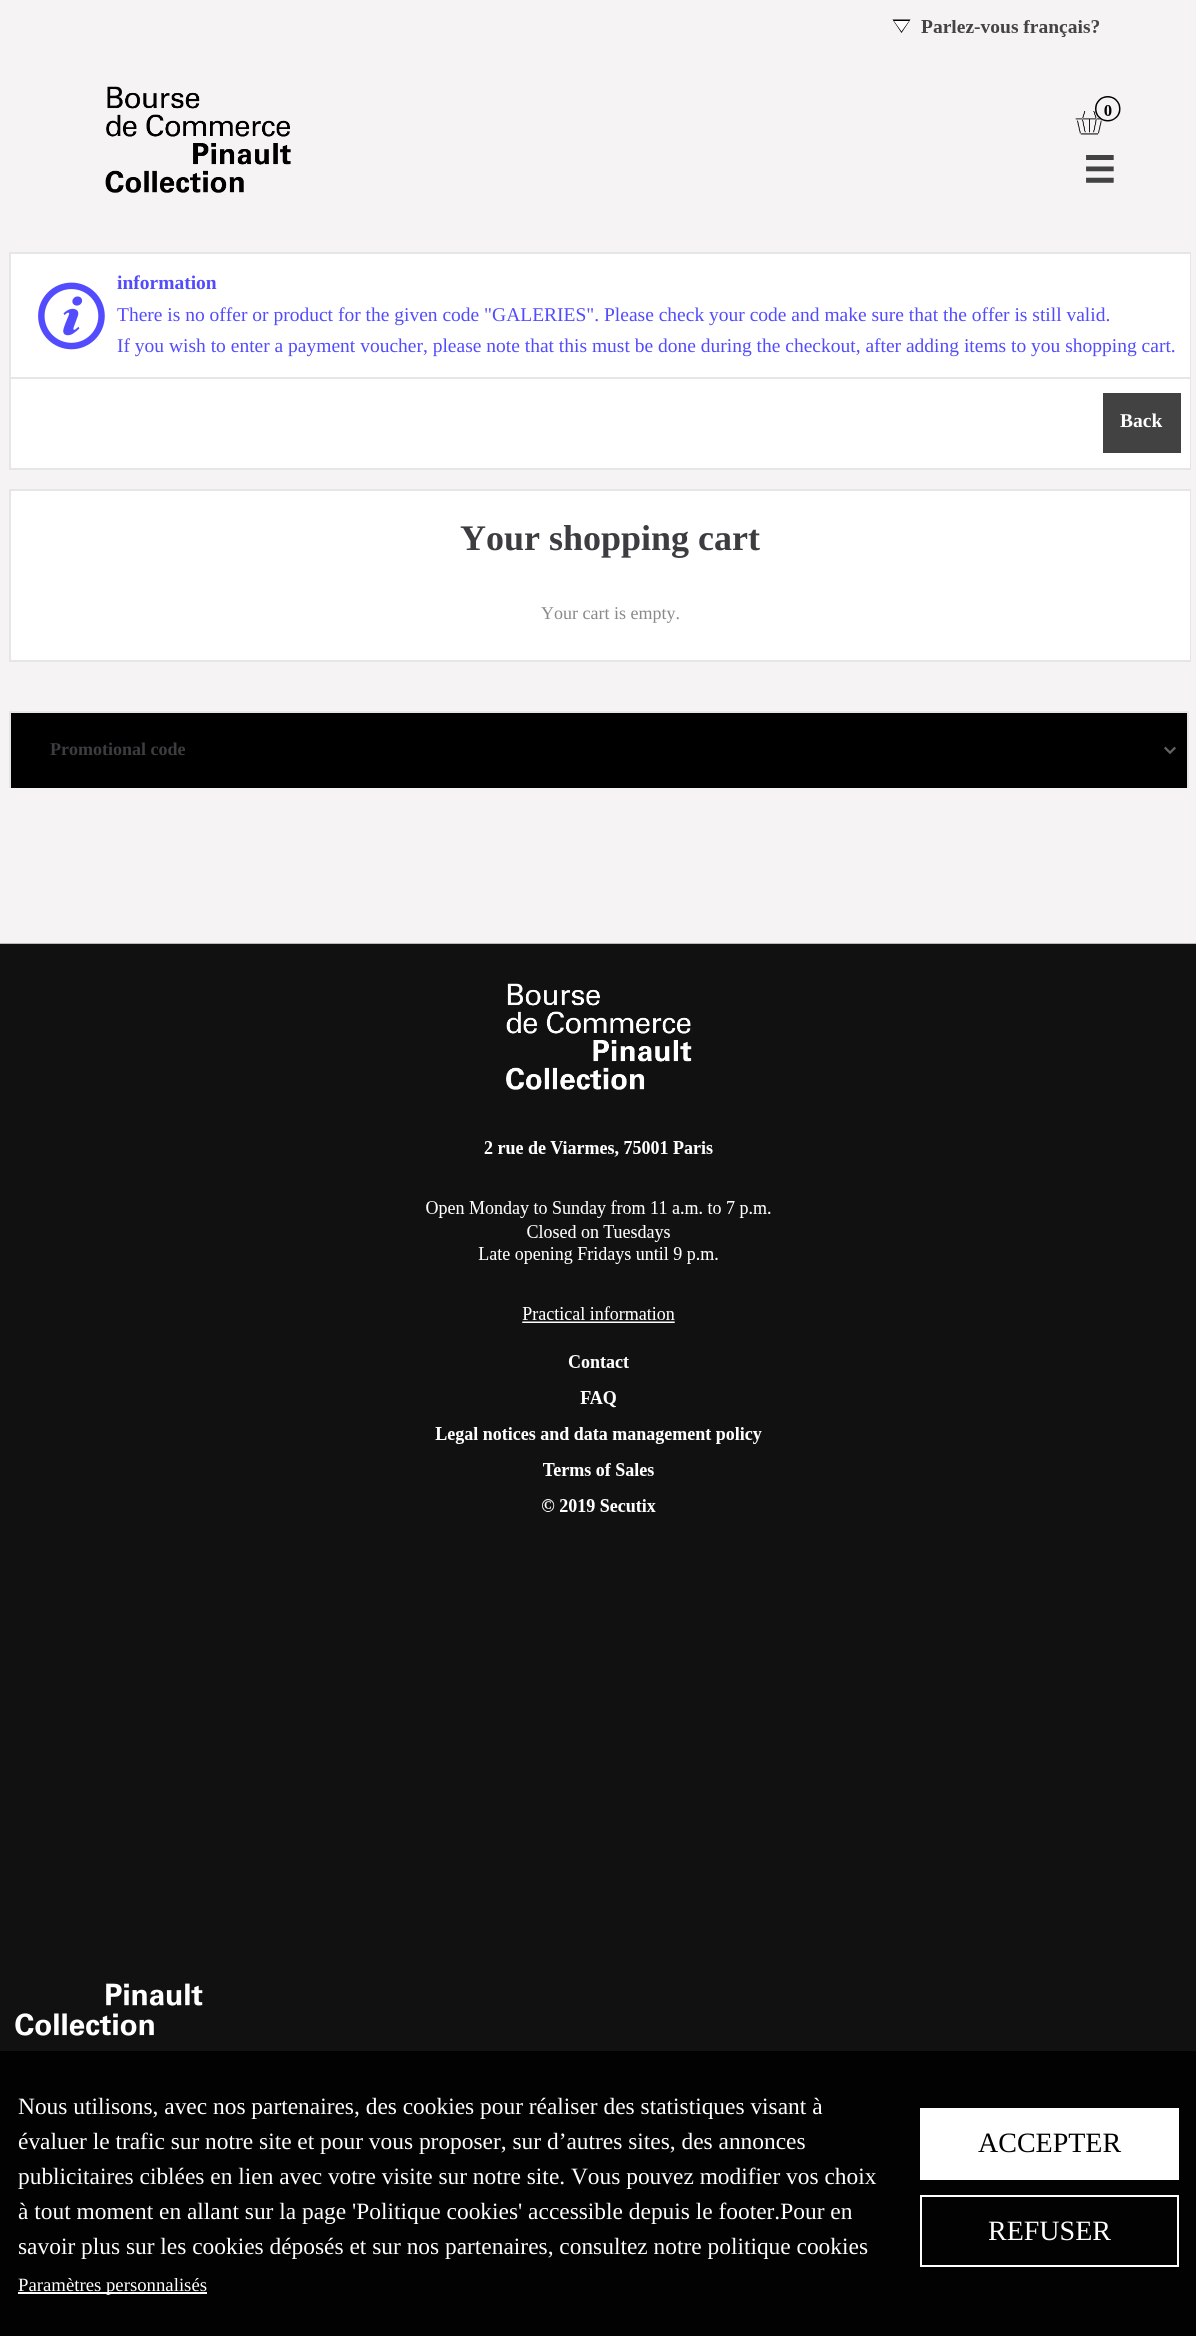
#include <cairo/cairo.h>
#include <math.h>
#include <stddef.h>


static void draw_image(cairo_t *cr, const char *path, double x, double y, double w, double h) {
  cairo_surface_t *image = cairo_image_surface_create_from_png(path);
  cairo_save(cr);
  cairo_set_source_surface(cr, image, x, y);
  cairo_rectangle(cr, x, y, w, h);
  cairo_fill(cr);
  cairo_restore(cr);
  cairo_surface_destroy(image);
}

static void draw(cairo_t *cr) {
  cairo_set_source_rgb(cr, 17 / 255.0, 17 / 255.0, 17 / 255.0);
  cairo_paint(cr);
  cairo_set_source_rgb(cr, 245 / 255.0, 243 / 255.0, 244 / 255.0);
  cairo_rectangle(cr, 0, 0, 1196, 944);
  cairo_fill(cr);
  draw_image(cr, "images/1.png", 105, 19, 1016, 174);
  cairo_rectangle(cr, 10, 253, 1180, 216);
  cairo_set_source_rgb(cr, 230 / 255.0, 230 / 255.0, 230 / 255.0);
  cairo_stroke(cr);
  cairo_set_source_rgb(cr, 1, 1, 1);
  cairo_rectangle(cr, 11, 254, 1179, 214);
  cairo_fill(cr);
  cairo_set_source_rgb(cr, 230 / 255.0, 230 / 255.0, 230 / 255.0);
  cairo_rectangle(cr, 11, 377, 1179, 2);
  cairo_fill(cr);
  draw_image(cr, "images/2.png", 38, 282, 67, 68);
  cairo_set_source_rgb(cr, 66 / 255.0, 66 / 255.0, 66 / 255.0);
  cairo_rectangle(cr, 1103, 393, 78, 60);
  cairo_fill(cr);
  cairo_rectangle(cr, 10, 490, 1180, 171);
  cairo_set_source_rgb(cr, 230 / 255.0, 230 / 255.0, 230 / 255.0);
  cairo_stroke(cr);
  cairo_set_source_rgb(cr, 1, 1, 1);
  cairo_rectangle(cr, 11, 491, 1179, 169);
  cairo_fill(cr);
  cairo_set_source_rgb(cr, 230 / 255.0, 230 / 255.0, 230 / 255.0);
  cairo_rectangle(cr, 9, 711, 1179, 2);
  cairo_fill(cr);
  cairo_rectangle(cr, 1187, 711, 2, 77);
  cairo_fill(cr);
  cairo_rectangle(cr, 9, 711, 2, 77);
  cairo_fill(cr);
  cairo_set_source_rgb(cr, 0, 0, 0);
  cairo_rectangle(cr, 11, 713, 1176, 75);
  cairo_fill(cr);
  draw_image(cr, "images/3.png", 1164, 746, 12, 9);
  draw_image(cr, "images/4.png", 0, 943, 1196, 617);
  cairo_set_source_rgb(cr, 2 / 255.0, 2 / 255.0, 2 / 255.0);
  cairo_rectangle(cr, 0, 2051, 1196, 285);
  cairo_fill(cr);
  draw_image(cr, "images/5.png", 15, 1983, 188, 53);
  cairo_set_source_rgb(cr, 1, 1, 1);
  cairo_rectangle(cr, 18, 2292, 189, 2);
  cairo_fill(cr);
  cairo_rectangle(cr, 920, 2108, 259, 72);
  cairo_fill(cr);
  cairo_rectangle(cr, 921, 2196, 257, 70);
  cairo_stroke(cr);
  cairo_select_font_face(cr, "Liberation Serif", CAIRO_FONT_SLANT_NORMAL, CAIRO_FONT_WEIGHT_BOLD);
  cairo_set_font_size(cr, 19.5);
  cairo_set_source_rgb(cr, 83 / 255.0, 75 / 255.0, 254 / 255.0);
  cairo_move_to(cr, 117, 289);
  cairo_show_text(cr, "information");
  cairo_select_font_face(cr, "Liberation Serif", CAIRO_FONT_SLANT_NORMAL, CAIRO_FONT_WEIGHT_NORMAL);
  cairo_move_to(cr, 117, 321);
  cairo_show_text(cr, "There is no offer or product for the given code \"GALERIES\". Please check your code and make sure that the offer is still valid.");
  cairo_move_to(cr, 117, 352);
  cairo_show_text(cr, "If you wish to enter a payment voucher, please note that this must be done during the checkout, after adding items to you shopping cart.");
  cairo_select_font_face(cr, "Liberation Serif", CAIRO_FONT_SLANT_NORMAL, CAIRO_FONT_WEIGHT_BOLD);
  cairo_set_source_rgb(cr, 1, 1, 1);
  cairo_move_to(cr, 1120, 427);
  cairo_show_text(cr, "Back");
  cairo_set_font_size(cr, 36);
  cairo_set_source_rgb(cr, 59 / 255.0, 61 / 255.0, 64 / 255.0);
  cairo_move_to(cr, 460, 550);
  cairo_show_text(cr, "Your shopping cart");
  cairo_select_font_face(cr, "Liberation Serif", CAIRO_FONT_SLANT_NORMAL, CAIRO_FONT_WEIGHT_NORMAL);
  cairo_set_font_size(cr, 18);
  cairo_set_source_rgb(cr, 136 / 255.0, 137 / 255.0, 138 / 255.0);
  cairo_move_to(cr, 541, 619);
  cairo_show_text(cr, "Your cart is empty.");
  cairo_select_font_face(cr, "Liberation Serif", CAIRO_FONT_SLANT_NORMAL, CAIRO_FONT_WEIGHT_BOLD);
  cairo_set_source_rgb(cr, 59 / 255.0, 61 / 255.0, 64 / 255.0);
  cairo_move_to(cr, 50, 755);
  cairo_show_text(cr, "Promotional code");
  cairo_select_font_face(cr, "Liberation Serif", CAIRO_FONT_SLANT_NORMAL, CAIRO_FONT_WEIGHT_NORMAL);
  cairo_set_font_size(cr, 23.4);
  cairo_set_source_rgb(cr, 1, 1, 1);
  cairo_move_to(cr, 18, 2114);
  cairo_show_text(cr, "Nous utilisons, avec nos partenaires, des cookies pour réaliser des statistiques visant à");
  cairo_move_to(cr, 18, 2149);
  cairo_show_text(cr, "évaluer le trafic sur notre site et pour vous proposer, sur d’autres sites, des annonces");
  cairo_move_to(cr, 18, 2184);
  cairo_show_text(cr, "publicitaires ciblées en lien avec votre visite sur notre site. Vous pouvez modifier vos choix");
  cairo_move_to(cr, 18, 2219);
  cairo_show_text(cr, "à tout moment en allant sur la page 'Politique cookies' accessible depuis le footer.Pour en");
  cairo_move_to(cr, 18, 2254);
  cairo_show_text(cr, "savoir plus sur les cookies déposés et sur nos partenaires, consultez notre politique cookies");
  cairo_set_font_size(cr, 18.75);
  cairo_move_to(cr, 18, 2291);
  cairo_show_text(cr, "Paramètres personnalisés");
  cairo_set_font_size(cr, 28);
  cairo_set_source_rgb(cr, 0, 0, 0);
  cairo_move_to(cr, 978, 2152);
  cairo_show_text(cr, "ACCEPTER");
  cairo_set_source_rgb(cr, 1, 1, 1);
  cairo_move_to(cr, 988, 2240);
  cairo_show_text(cr, "REFUSER");
}

int main(void) {
  cairo_surface_t *surface = cairo_image_surface_create(CAIRO_FORMAT_RGB24, 1196, 2336);
  cairo_t *cr = cairo_create(surface);
  cairo_font_options_t *options = cairo_font_options_create();
  cairo_font_options_set_hint_metrics(options, CAIRO_HINT_METRICS_OFF);
  cairo_font_options_set_hint_style(options, CAIRO_HINT_STYLE_NONE);
  cairo_set_font_options(cr, options);
  cairo_set_miter_limit(cr, 4);
  draw(cr);
  cairo_surface_write_to_png(surface, "out.png");
  cairo_font_options_destroy(options);
  cairo_destroy(cr);
  cairo_surface_destroy(surface);
  return 0;
}
